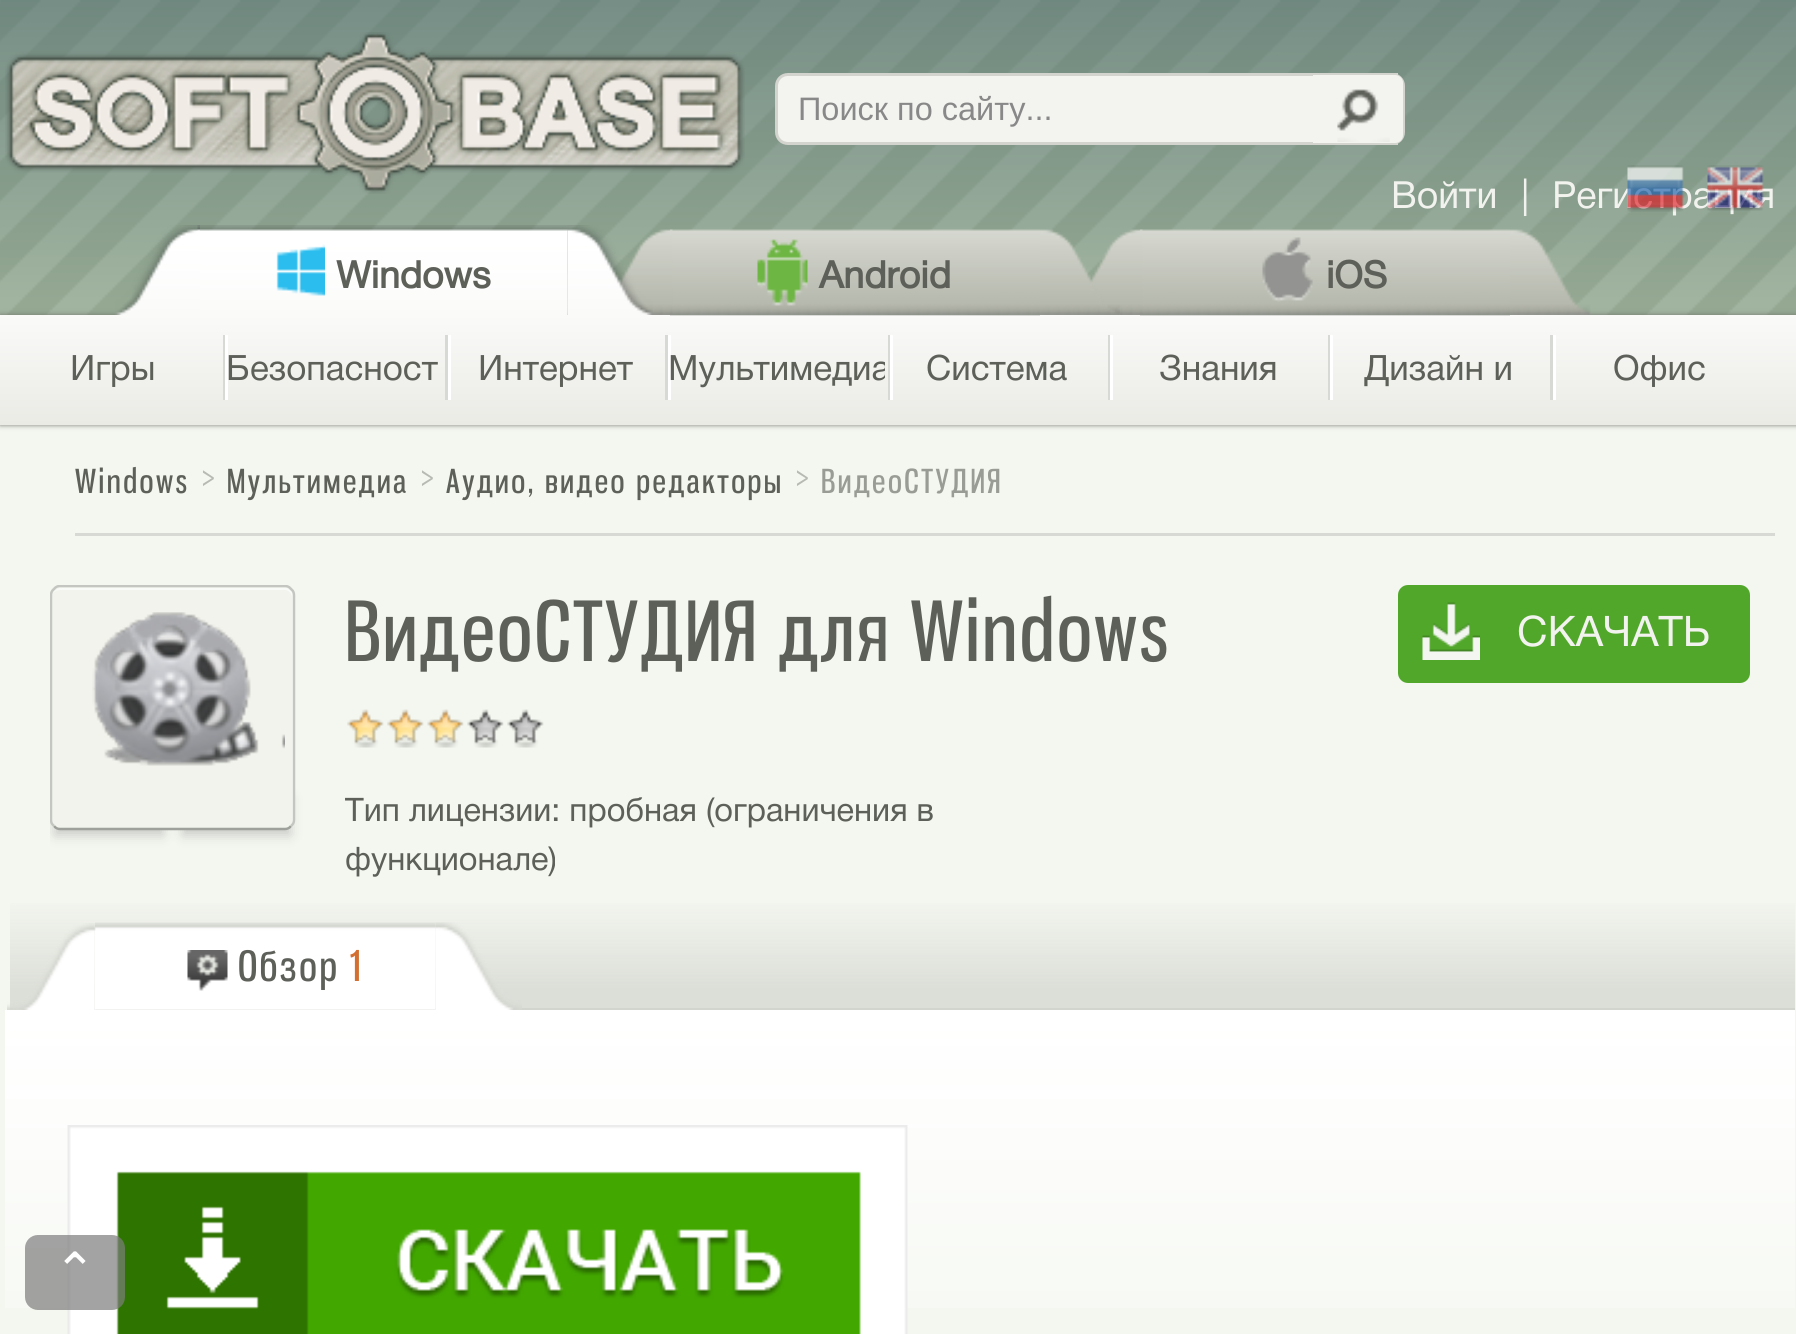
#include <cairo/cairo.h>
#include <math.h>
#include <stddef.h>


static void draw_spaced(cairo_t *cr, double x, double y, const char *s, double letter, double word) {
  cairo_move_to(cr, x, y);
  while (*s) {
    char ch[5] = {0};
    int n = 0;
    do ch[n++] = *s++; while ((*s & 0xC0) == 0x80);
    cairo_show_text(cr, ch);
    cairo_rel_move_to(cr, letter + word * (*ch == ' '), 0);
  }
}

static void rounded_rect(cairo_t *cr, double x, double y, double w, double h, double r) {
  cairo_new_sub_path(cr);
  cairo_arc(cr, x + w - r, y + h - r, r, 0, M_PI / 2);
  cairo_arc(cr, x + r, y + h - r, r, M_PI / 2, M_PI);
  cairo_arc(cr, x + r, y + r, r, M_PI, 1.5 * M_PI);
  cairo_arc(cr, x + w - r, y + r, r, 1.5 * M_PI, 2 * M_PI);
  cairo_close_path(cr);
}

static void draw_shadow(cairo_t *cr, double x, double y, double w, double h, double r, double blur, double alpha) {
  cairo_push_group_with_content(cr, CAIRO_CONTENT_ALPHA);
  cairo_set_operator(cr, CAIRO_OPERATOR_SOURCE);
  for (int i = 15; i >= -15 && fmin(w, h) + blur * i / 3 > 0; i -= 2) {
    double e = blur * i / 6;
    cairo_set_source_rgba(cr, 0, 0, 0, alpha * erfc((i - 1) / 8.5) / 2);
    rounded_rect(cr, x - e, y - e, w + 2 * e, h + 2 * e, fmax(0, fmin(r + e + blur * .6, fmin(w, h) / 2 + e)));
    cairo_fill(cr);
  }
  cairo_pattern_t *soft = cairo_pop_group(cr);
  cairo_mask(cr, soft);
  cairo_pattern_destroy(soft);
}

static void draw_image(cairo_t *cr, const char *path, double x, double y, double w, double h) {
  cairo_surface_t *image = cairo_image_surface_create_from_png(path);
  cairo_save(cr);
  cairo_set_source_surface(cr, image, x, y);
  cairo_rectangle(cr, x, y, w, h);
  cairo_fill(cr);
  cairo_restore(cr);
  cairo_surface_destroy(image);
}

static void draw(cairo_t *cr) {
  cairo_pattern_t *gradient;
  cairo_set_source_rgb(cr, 1, 1, 1);
  cairo_paint(cr);
  draw_image(cr, "images/1.png", 0, 0, 1796, 315);
  draw_image(cr, "images/2.png", 5, 32, 740, 162);
  cairo_set_source_rgb(cr, 243 / 255.0, 243 / 255.0, 239 / 255.0);
  cairo_new_path(cr);
  cairo_move_to(cr, 788, 74.5);
  cairo_line_to(cr, 1396.5, 74.5);
  cairo_line_to(cr, 1396.5, 143.5);
  cairo_line_to(cr, 788, 143.5);
  cairo_curve_to(cr, 781.5, 143.5, 776.5, 138.5, 776.5, 132);
  cairo_line_to(cr, 776.5, 86);
  cairo_curve_to(cr, 776.5, 79.5, 781.5, 74.5, 788, 74.5);
  cairo_close_path(cr);
  cairo_fill_preserve(cr);
  cairo_set_source_rgb(cr, 210 / 255.0, 212 / 255.0, 205 / 255.0);
  cairo_set_line_width(cr, 3);
  cairo_stroke(cr);
  cairo_new_path(cr);
  cairo_move_to(cr, 1314.5, 74.5);
  cairo_line_to(cr, 1392, 74.5);
  cairo_curve_to(cr, 1398.5, 74.5, 1403.5, 79.5, 1403.5, 86);
  cairo_line_to(cr, 1403.5, 132);
  cairo_curve_to(cr, 1403.5, 138.5, 1398.5, 143.5, 1392, 143.5);
  cairo_line_to(cr, 1314.5, 143.5);
  cairo_close_path(cr);
  cairo_stroke(cr);
  cairo_set_source_rgb(cr, 243 / 255.0, 243 / 255.0, 239 / 255.0);
  cairo_new_path(cr);
  cairo_move_to(cr, 1313, 75);
  cairo_line_to(cr, 1395, 75);
  cairo_curve_to(cr, 1399.5, 75, 1403, 78.5, 1403, 83);
  cairo_line_to(cr, 1403, 135);
  cairo_curve_to(cr, 1403, 139.5, 1399.5, 143, 1395, 143);
  cairo_line_to(cr, 1313, 143);
  cairo_close_path(cr);
  cairo_fill(cr);
  draw_image(cr, "images/3.png", 1337, 89, 53, 53);
  cairo_set_source_rgb(cr, 244 / 255.0, 247 / 255.0, 240 / 255.0);
  cairo_rectangle(cr, 0, 425, 1796, 909);
  cairo_fill(cr);
  cairo_set_source_rgb(cr, 117 / 255.0, 120 / 255.0, 113 / 255.0);
  draw_shadow(cr, 0, 315, 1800, 110, 0, 2.5, 1);
  draw_image(cr, "images/6.png", 197, 225, 371, 90);
  draw_image(cr, "images/7.png", 115, 225, 85, 90);
  draw_image(cr, "images/8.png", 276, 244, 49, 52);
  gradient = cairo_pattern_create_linear(900, 315, 900, 425);
  cairo_pattern_add_color_stop_rgba(gradient, 0, 250 / 255.0, 250 / 255.0, 249 / 255.0, 1);
  cairo_pattern_add_color_stop_rgba(gradient, 1, 234 / 255.0, 235 / 255.0, 229 / 255.0, 1);
  cairo_set_source(cr, gradient);
  cairo_pattern_destroy(gradient);
  cairo_rectangle(cr, 0, 315, 1796, 110);
  cairo_fill(cr);
  draw_image(cr, "images/10.png", 670, 229, 370, 87);
  draw_image(cr, "images/11.png", 617, 229, 56, 86);
  draw_image(cr, "images/9.png", 567, 225, 86, 90);
  draw_image(cr, "images/12.png", 757, 239, 51, 67);
  draw_image(cr, "images/14.png", 1140, 229, 370, 87);
  draw_image(cr, "images/15.png", 1089, 229, 54, 86);
  draw_image(cr, "images/13.png", 1040, 229, 80, 86);
  draw_image(cr, "images/16.png", 1262, 237, 51, 65);
  draw_image(cr, "images/17.png", 1510, 229, 81, 86);
  cairo_set_source_rgb(cr, 215 / 255.0, 218 / 255.0, 212 / 255.0);
  cairo_rectangle(cr, 223, 335, 2, 65);
  cairo_fill(cr);
  cairo_set_source_rgb(cr, 1, 1, 1);
  cairo_rectangle(cr, 225, 335, 3, 65);
  cairo_fill(cr);
  cairo_set_source_rgb(cr, 215 / 255.0, 218 / 255.0, 212 / 255.0);
  cairo_rectangle(cr, 445, 335, 3, 65);
  cairo_fill(cr);
  cairo_set_source_rgb(cr, 1, 1, 1);
  cairo_rectangle(cr, 448, 335, 3, 65);
  cairo_fill(cr);
  cairo_set_source_rgb(cr, 215 / 255.0, 218 / 255.0, 212 / 255.0);
  cairo_rectangle(cr, 665, 335, 3, 65);
  cairo_fill(cr);
  cairo_set_source_rgb(cr, 1, 1, 1);
  cairo_rectangle(cr, 668, 335, 3, 65);
  cairo_fill(cr);
  cairo_set_source_rgb(cr, 215 / 255.0, 218 / 255.0, 212 / 255.0);
  cairo_rectangle(cr, 888, 335, 2, 65);
  cairo_fill(cr);
  cairo_set_source_rgb(cr, 1, 1, 1);
  cairo_rectangle(cr, 890, 335, 3, 65);
  cairo_fill(cr);
  cairo_set_source_rgb(cr, 215 / 255.0, 218 / 255.0, 212 / 255.0);
  cairo_rectangle(cr, 1108, 335, 2, 65);
  cairo_fill(cr);
  cairo_set_source_rgb(cr, 1, 1, 1);
  cairo_rectangle(cr, 1110, 335, 3, 65);
  cairo_fill(cr);
  cairo_set_source_rgb(cr, 215 / 255.0, 218 / 255.0, 212 / 255.0);
  cairo_rectangle(cr, 1328, 335, 2, 65);
  cairo_fill(cr);
  cairo_set_source_rgb(cr, 1, 1, 1);
  cairo_rectangle(cr, 1330, 335, 3, 65);
  cairo_fill(cr);
  cairo_set_source_rgb(cr, 215 / 255.0, 218 / 255.0, 212 / 255.0);
  cairo_rectangle(cr, 1550, 335, 3, 65);
  cairo_fill(cr);
  cairo_set_source_rgb(cr, 1, 1, 1);
  cairo_rectangle(cr, 1553, 335, 3, 65);
  cairo_fill(cr);
  cairo_set_source_rgb(cr, 215 / 255.0, 218 / 255.0, 212 / 255.0);
  cairo_rectangle(cr, 75, 533, 1700, 3);
  cairo_fill(cr);
  cairo_save(cr);
  cairo_rectangle(cr, 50, 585, 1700, 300);
  cairo_clip(cr);
  cairo_set_source_rgb(cr, 120 / 255.0, 120 / 255.0, 120 / 255.0);
  draw_shadow(cr, 55, 798, 108, 37, 0, 6, 0.35);
  cairo_restore(cr);
  cairo_set_source_rgb(cr, 120 / 255.0, 120 / 255.0, 120 / 255.0);
  draw_shadow(cr, 183, 798, 107, 37, 0, 6, 0.35);
  cairo_set_source_rgb(cr, 242 / 255.0, 243 / 255.0, 237 / 255.0);
  rounded_rect(cr, 50, 585, 245, 245, 10);
  cairo_fill(cr);
  cairo_set_source_rgb(cr, 249 / 255.0, 251 / 255.0, 248 / 255.0);
  cairo_new_path(cr);
  cairo_move_to(cr, 60, 590);
  cairo_line_to(cr, 285, 590);
  cairo_curve_to(cr, 289, 590, 292, 594, 292, 598);
  cairo_line_to(cr, 292, 824);
  cairo_curve_to(cr, 293, 823, 293, 822, 293, 820);
  cairo_line_to(cr, 293, 596);
  cairo_curve_to(cr, 293, 592, 289, 588, 285, 588);
  cairo_line_to(cr, 61, 588);
  cairo_curve_to(cr, 58, 588, 55, 590, 53, 593);
  cairo_curve_to(cr, 55, 591, 58, 590, 60, 590);
  cairo_close_path(cr);
  cairo_fill(cr);
  cairo_new_path(cr);
  cairo_move_to(cr, 291, 826);
  cairo_curve_to(cr, 289.5, 828, 287.5, 829, 285, 829);
  cairo_line_to(cr, 60, 829);
  cairo_curve_to(cr, 57.5, 829, 55.5, 828, 54, 826);
  cairo_set_source_rgb(cr, 158 / 255.0, 160 / 255.0, 155 / 255.0);
  cairo_set_line_width(cr, 2.5);
  cairo_stroke(cr);
  cairo_save(cr);
  cairo_rectangle(cr, 50, 585, 1700, 300);
  cairo_clip(cr);
  cairo_new_path(cr);
  cairo_move_to(cr, 54, 826);
  cairo_curve_to(cr, 52, 824.5, 51, 822.5, 51, 820);
  cairo_line_to(cr, 51, 595);
  cairo_curve_to(cr, 51, 592.5, 52, 590.5, 54, 589);
  cairo_curve_to(cr, 55.5, 587, 57.5, 586, 60, 586);
  cairo_line_to(cr, 285, 586);
  cairo_curve_to(cr, 287.5, 586, 289.5, 587, 291, 589);
  cairo_curve_to(cr, 293, 590.5, 294, 592.5, 294, 595);
  cairo_line_to(cr, 294, 820);
  cairo_curve_to(cr, 294, 822.5, 293, 824.5, 291, 826);
  cairo_set_source_rgb(cr, 196 / 255.0, 198 / 255.0, 193 / 255.0);
  cairo_stroke(cr);
  cairo_restore(cr);
  draw_image(cr, "images/18.png", 92, 612, 193, 154);
  cairo_set_source_rgb(cr, 81 / 255.0, 167 / 255.0, 42 / 255.0);
  rounded_rect(cr, 1399.5, 586.5, 349, 95, 8.5);
  cairo_fill_preserve(cr);
  cairo_set_line_width(cr, 3);
  cairo_stroke(cr);
  draw_image(cr, "images/19.png", 1422, 602, 58, 58);
  draw_image(cr, "images/20.png", 347, 709, 37, 39);
  draw_image(cr, "images/20.png", 387, 709, 37, 39);
  draw_image(cr, "images/21.png", 427, 709, 37, 39);
  draw_image(cr, "images/22.png", 467, 709, 37, 39);
  draw_image(cr, "images/23.png", 507, 709, 37, 39);
  cairo_set_source_rgb(cr, 210 / 255.0, 212 / 255.0, 206 / 255.0);
  cairo_rectangle(cr, 10, 1008, 1785, 3);
  cairo_fill(cr);
  draw_image(cr, "images/24.png", 5, 1010, 1790, 298);
  gradient = cairo_pattern_create_linear(903, 820, 903, 1008);
  cairo_pattern_add_color_stop_rgba(gradient, 0.4, 220 / 255.0, 223 / 255.0, 216 / 255.0, 0);
  cairo_pattern_add_color_stop_rgba(gradient, 0.9, 220 / 255.0, 223 / 255.0, 216 / 255.0, 1);
  cairo_set_source(cr, gradient);
  cairo_pattern_destroy(gradient);
  cairo_rectangle(cr, 10, 903, 1785, 105);
  cairo_fill(cr);
  draw_image(cr, "images/25.png", 95, 922, 340, 88);
  draw_image(cr, "images/26.png", 7, 923, 89, 87);
  draw_image(cr, "images/27.png", 187, 950, 41, 41);
  draw_image(cr, "images/28.png", 435, 922, 87, 88);
  draw_image(cr, "images/29.png", 67, 1125, 841, 209);
  cairo_set_source_rgba(cr, 125 / 255.0, 125 / 255.0, 125 / 255.0, 0.7);
  rounded_rect(cr, 25, 1235, 100, 75, 13);
  cairo_fill(cr);
  cairo_select_font_face(cr, "Liberation Sans", CAIRO_FONT_SLANT_NORMAL, CAIRO_FONT_WEIGHT_NORMAL);
  cairo_set_font_size(cr, 32.5);
  cairo_set_source_rgb(cr, 136 / 255.0, 136 / 255.0, 136 / 255.0);
  cairo_move_to(cr, 798, 120);
  cairo_show_text(cr, "Поиск по сайту...");
  cairo_select_font_face(cr, "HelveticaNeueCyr", CAIRO_FONT_SLANT_NORMAL, CAIRO_FONT_WEIGHT_NORMAL);
  cairo_set_font_size(cr, 37.5);
  cairo_set_source_rgb(cr, 242 / 255.0, 243 / 255.0, 238 / 255.0);
  cairo_move_to(cr, 1391, 208);
  cairo_show_text(cr, "Войти");
  cairo_move_to(cr, 1521, 208);
  cairo_show_text(cr, "|");
  cairo_move_to(cr, 1552, 208);
  cairo_show_text(cr, "Регистрация");
  draw_image(cr, "images/5.png", 1707, 165, 57, 46);
  draw_image(cr, "images/4.png", 1627, 165, 57, 47);
  cairo_select_font_face(cr, "HelveticaNeueCyr", CAIRO_FONT_SLANT_NORMAL, CAIRO_FONT_WEIGHT_BOLD);
  cairo_set_source_rgb(cr, 93 / 255.0, 95 / 255.0, 89 / 255.0);
  cairo_move_to(cr, 336, 288);
  cairo_show_text(cr, "Windows");
  cairo_move_to(cr, 819, 288);
  cairo_show_text(cr, "Android");
  cairo_move_to(cr, 1326, 288);
  cairo_show_text(cr, "iOS");
  cairo_select_font_face(cr, "HelveticaNeueCyr", CAIRO_FONT_SLANT_NORMAL, CAIRO_FONT_WEIGHT_NORMAL);
  cairo_set_font_size(cr, 35);
  cairo_move_to(cr, 70, 380);
  cairo_show_text(cr, "Игры");
  cairo_move_to(cr, 226, 380);
  cairo_show_text(cr, "Безопасност");
  cairo_move_to(cr, 478, 380);
  cairo_show_text(cr, "Интернет");
  cairo_save(cr);
  cairo_rectangle(cr, 668, 315, 217, 105);
  cairo_clip(cr);
  cairo_move_to(cr, 668, 380);
  cairo_show_text(cr, "Мультимедиа");
  cairo_restore(cr);
  cairo_move_to(cr, 926, 380);
  cairo_show_text(cr, "Система");
  cairo_move_to(cr, 1159, 380);
  cairo_show_text(cr, "Знания");
  cairo_move_to(cr, 1364, 380);
  cairo_show_text(cr, "Дизайн и");
  cairo_move_to(cr, 1613, 380);
  cairo_show_text(cr, "Офис");
  cairo_select_font_face(cr, "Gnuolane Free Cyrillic", CAIRO_FONT_SLANT_NORMAL, CAIRO_FONT_WEIGHT_NORMAL);
  cairo_set_font_size(cr, 32.5);
  draw_spaced(cr, 75, 493, "Windows", 2.5, 0);
  cairo_set_source_rgb(cr, 183 / 255.0, 185 / 255.0, 179 / 255.0);
  draw_spaced(cr, 202, 490, ">", 2.5, 0);
  cairo_set_source_rgb(cr, 93 / 255.0, 95 / 255.0, 89 / 255.0);
  draw_spaced(cr, 227, 493, "Мультимедиа", 2.5, 0);
  cairo_set_source_rgb(cr, 183 / 255.0, 185 / 255.0, 179 / 255.0);
  draw_spaced(cr, 421, 490, ">", 2.5, 0);
  cairo_set_source_rgb(cr, 93 / 255.0, 95 / 255.0, 89 / 255.0);
  draw_spaced(cr, 446, 493, "Аудио, видео редакторы", 2.5, 0);
  cairo_set_source_rgb(cr, 183 / 255.0, 185 / 255.0, 179 / 255.0);
  draw_spaced(cr, 796, 490, ">", 2.5, 0);
  cairo_set_source_rgb(cr, 153 / 255.0, 156 / 255.0, 149 / 255.0);
  draw_spaced(cr, 821, 493, "ВидеоСТУДИЯ", 2.5, 0);
  cairo_set_font_size(cr, 81.25);
  cairo_set_source_rgb(cr, 93 / 255.0, 95 / 255.0, 89 / 255.0);
  draw_spaced(cr, 345, 661, "ВидеоСТУДИЯ для Windows", 2.5, 0);
  cairo_select_font_face(cr, "HelveticaNeueCyr", CAIRO_FONT_SLANT_NORMAL, CAIRO_FONT_WEIGHT_NORMAL);
  cairo_set_font_size(cr, 42.25);
  cairo_set_source_rgb(cr, 242 / 255.0, 243 / 255.0, 238 / 255.0);
  cairo_move_to(cr, 1517, 646);
  cairo_show_text(cr, "СКАЧАТЬ");
  cairo_set_font_size(cr, 32.5);
  cairo_set_source_rgb(cr, 93 / 255.0, 95 / 255.0, 89 / 255.0);
  cairo_move_to(cr, 345, 821);
  cairo_show_text(cr, "Тип лицензии: пробная (ограничения в");
  cairo_move_to(cr, 345, 870);
  cairo_show_text(cr, "функционале)");
  cairo_select_font_face(cr, "Gnuolane Free Cyrillic", CAIRO_FONT_SLANT_NORMAL, CAIRO_FONT_WEIGHT_NORMAL);
  cairo_set_font_size(cr, 41);
  draw_spaced(cr, 238, 981, "Обзор", 2.5, 0);
  cairo_set_source_rgb(cr, 211 / 255.0, 111 / 255.0, 49 / 255.0);
  draw_spaced(cr, 350, 981, "1", 2.5, 0);
  cairo_select_font_face(cr, "DejaVu Sans", CAIRO_FONT_SLANT_NORMAL, CAIRO_FONT_WEIGHT_NORMAL);
  cairo_set_font_size(cr, 50);
  cairo_set_source_rgb(cr, 1, 1, 1);
  cairo_move_to(cr, 54, 1288);
  cairo_show_text(cr, "⌃");
}

int main(void) {
  cairo_surface_t *surface = cairo_image_surface_create(CAIRO_FORMAT_RGB24, 1796, 1334);
  cairo_t *cr = cairo_create(surface);
  cairo_font_options_t *options = cairo_font_options_create();
  cairo_font_options_set_hint_metrics(options, CAIRO_HINT_METRICS_OFF);
  cairo_font_options_set_hint_style(options, CAIRO_HINT_STYLE_NONE);
  cairo_set_font_options(cr, options);
  cairo_set_miter_limit(cr, 4);
  draw(cr);
  cairo_surface_write_to_png(surface, "out.png");
  cairo_font_options_destroy(options);
  cairo_destroy(cr);
  cairo_surface_destroy(surface);
  return 0;
}
